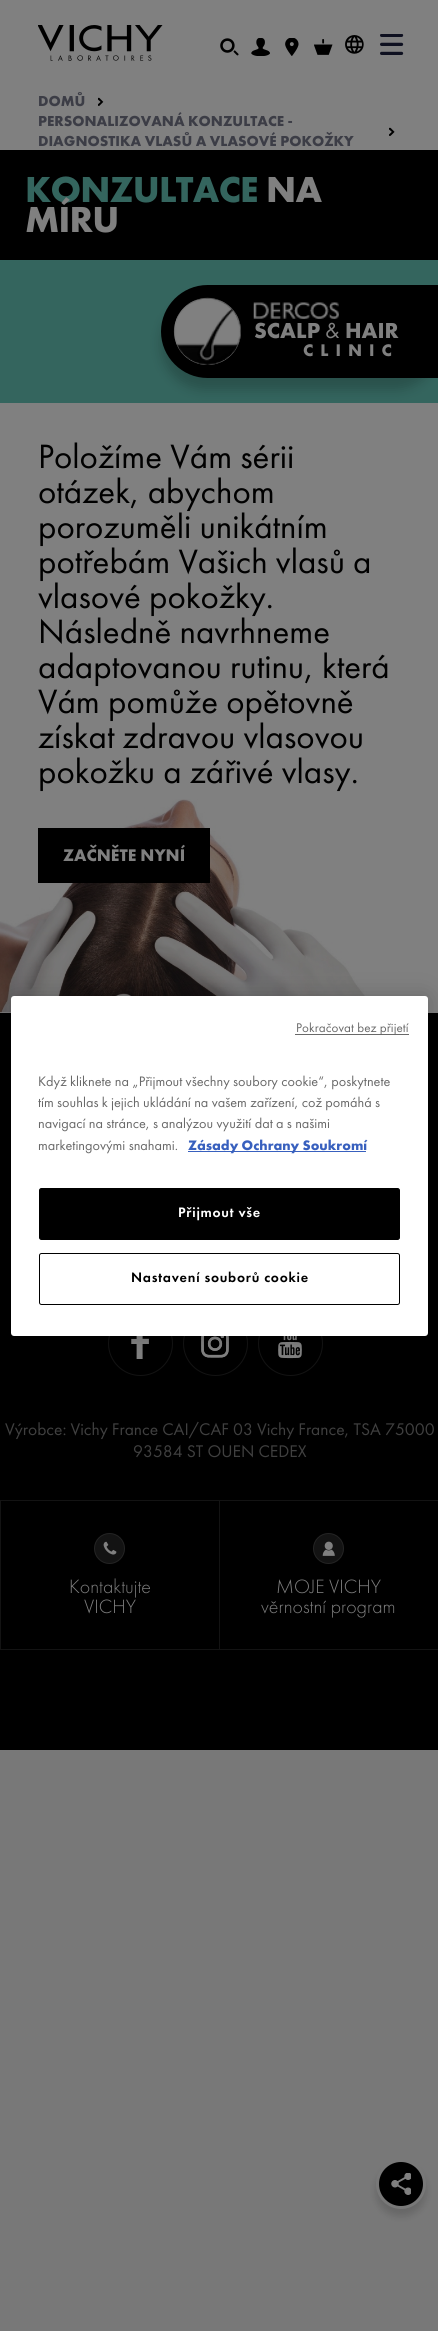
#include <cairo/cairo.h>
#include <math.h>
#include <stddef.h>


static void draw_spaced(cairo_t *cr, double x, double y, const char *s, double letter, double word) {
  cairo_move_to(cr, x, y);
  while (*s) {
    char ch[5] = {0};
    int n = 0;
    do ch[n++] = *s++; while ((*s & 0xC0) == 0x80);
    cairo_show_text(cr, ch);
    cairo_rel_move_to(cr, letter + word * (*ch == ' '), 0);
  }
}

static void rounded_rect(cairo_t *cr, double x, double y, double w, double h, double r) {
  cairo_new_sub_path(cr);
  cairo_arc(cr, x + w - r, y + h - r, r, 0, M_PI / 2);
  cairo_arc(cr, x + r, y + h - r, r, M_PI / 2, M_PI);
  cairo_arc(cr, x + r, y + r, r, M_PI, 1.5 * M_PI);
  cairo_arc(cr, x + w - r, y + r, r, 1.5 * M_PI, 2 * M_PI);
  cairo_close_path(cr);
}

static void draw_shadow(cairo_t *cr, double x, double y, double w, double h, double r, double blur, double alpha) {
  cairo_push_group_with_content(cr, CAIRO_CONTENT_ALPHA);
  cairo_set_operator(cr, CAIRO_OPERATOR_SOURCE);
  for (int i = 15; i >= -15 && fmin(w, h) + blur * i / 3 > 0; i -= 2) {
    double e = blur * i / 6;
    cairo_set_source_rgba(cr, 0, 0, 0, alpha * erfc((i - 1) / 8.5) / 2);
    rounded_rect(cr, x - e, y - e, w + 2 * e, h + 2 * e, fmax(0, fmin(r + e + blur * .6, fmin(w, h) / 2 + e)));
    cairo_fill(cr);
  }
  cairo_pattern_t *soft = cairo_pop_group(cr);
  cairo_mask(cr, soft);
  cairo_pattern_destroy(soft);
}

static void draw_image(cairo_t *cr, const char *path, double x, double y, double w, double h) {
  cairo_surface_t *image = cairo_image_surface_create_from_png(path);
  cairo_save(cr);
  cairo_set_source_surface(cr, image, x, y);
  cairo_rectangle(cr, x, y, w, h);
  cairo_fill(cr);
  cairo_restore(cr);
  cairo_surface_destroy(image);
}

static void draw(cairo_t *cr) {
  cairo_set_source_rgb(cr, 120 / 255.0, 120 / 255.0, 120 / 255.0);
  cairo_paint(cr);
  cairo_set_source_rgb(cr, 128 / 255.0, 128 / 255.0, 128 / 255.0);
  cairo_rectangle(cr, 0, 0, 438, 150);
  cairo_fill(cr);
  draw_image(cr, "images/1.png", 38, 25, 125, 36);
  draw_image(cr, "images/2.png", 220, 38, 19, 18);
  draw_image(cr, "images/3.png", 251, 38, 19, 18);
  draw_image(cr, "images/4.png", 285, 38, 14, 18);
  draw_image(cr, "images/5.png", 314, 39, 19, 16);
  draw_image(cr, "images/6.png", 345, 35, 19, 19);
  draw_image(cr, "images/7.png", 380, 34, 24, 21);
  draw_image(cr, "images/8.png", 98, 97, 6, 9);
  draw_image(cr, "images/9.png", 389, 127, 6, 9);
  cairo_rectangle(cr, 0, 403, 438, 610);
  cairo_fill(cr);
  draw_image(cr, "images/10.png", 0, 799, 375, 214);
  cairo_set_source_rgb(cr, 0, 0, 0);
  cairo_rectangle(cr, 0, 150, 438, 110);
  cairo_fill(cr);
  cairo_set_source_rgb(cr, 52 / 255.0, 101 / 255.0, 94 / 255.0);
  cairo_rectangle(cr, 0, 260, 438, 143);
  cairo_fill(cr);
  cairo_set_source_rgb(cr, 0, 0, 0);
  draw_shadow(cr, 161, 298, 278, 92, 46, 6, 0.2);
  cairo_set_source_rgb(cr, 0, 0, 0);
  cairo_new_path(cr);
  cairo_move_to(cr, 207.5, 285);
  cairo_line_to(cr, 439, 285);
  cairo_line_to(cr, 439, 378);
  cairo_line_to(cr, 207.5, 378);
  cairo_curve_to(cr, 182, 378, 161, 357, 161, 331.5);
  cairo_curve_to(cr, 161, 306, 182, 285, 207.5, 285);
  cairo_close_path(cr);
  cairo_fill(cr);
  cairo_set_source_rgb(cr, 128 / 255.0, 128 / 255.0, 128 / 255.0);
  cairo_arc(cr, 207.5, 331.5, 33.5, 0, 2 * M_PI);
  cairo_fill(cr);
  draw_image(cr, "images/11.png", 173, 297, 69, 68);
  draw_image(cr, "images/12.png", 253, 302, 86, 17);
  cairo_set_source_rgb(cr, 0, 0, 0);
  cairo_rectangle(cr, 38, 828, 172, 55);
  cairo_fill(cr);
  cairo_rectangle(cr, 0, 1013, 438, 737);
  cairo_fill(cr);
  cairo_arc(cr, 140.5, 1343.5, 32, 0, 2 * M_PI);
  cairo_set_source_rgb(cr, 19 / 255.0, 19 / 255.0, 19 / 255.0);
  cairo_set_line_width(cr, 1);
  cairo_stroke(cr);
  draw_image(cr, "images/13.png", 131, 1336, 18, 23);
  cairo_arc(cr, 215.5, 1343.5, 32, 0, 2 * M_PI);
  cairo_stroke(cr);
  draw_image(cr, "images/14.png", 201, 1336, 28, 22);
  draw_image(cr, "images/15.png", 201, 1336, 28, 22);
  cairo_arc(cr, 290.5, 1343.5, 32, 0, 2 * M_PI);
  cairo_stroke(cr);
  draw_image(cr, "images/16.png", 278, 1336, 24, 23);
  cairo_set_source_rgb(cr, 0, 0, 0);
  draw_shadow(cr, 11, 996, 417, 340, 3, 11, 0.2);
  cairo_set_source_rgb(cr, 1, 1, 1);
  rounded_rect(cr, 11, 996, 417, 340, 3);
  cairo_fill(cr);
  cairo_set_source_rgb(cr, 105 / 255.0, 105 / 255.0, 105 / 255.0);
  cairo_rectangle(cr, 295, 1034, 114, 1);
  cairo_fill(cr);
  cairo_set_source_rgb(cr, 56 / 255.0, 96 / 255.0, 190 / 255.0);
  cairo_rectangle(cr, 188, 1151, 178, 1);
  cairo_fill(cr);
  cairo_set_source_rgb(cr, 0, 0, 0);
  rounded_rect(cr, 39.5, 1188.5, 360, 51, 2);
  cairo_fill_preserve(cr);
  cairo_stroke(cr);
  rounded_rect(cr, 39.5, 1253.5, 360, 51, 2);
  cairo_stroke(cr);
  cairo_rectangle(cr, 0.5, 1500.5, 219, 149);
  cairo_set_source_rgb(cr, 19 / 255.0, 19 / 255.0, 19 / 255.0);
  cairo_stroke(cr);
  cairo_arc(cr, 109.5, 1548.5, 15.5, 0, 2 * M_PI);
  cairo_fill(cr);
  cairo_arc(cr, 109.5, 1548.5, 15, 0, 2 * M_PI);
  cairo_set_source_rgba(cr, 128 / 255.0, 128 / 255.0, 128 / 255.0, 0.15);
  cairo_stroke(cr);
  draw_image(cr, "images/17.png", 103, 1541, 14, 14);
  cairo_set_source_rgb(cr, 19 / 255.0, 19 / 255.0, 19 / 255.0);
  cairo_new_path(cr);
  cairo_move_to(cr, 220, 1500);
  cairo_line_to(cr, 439, 1500);
  cairo_line_to(cr, 438, 1501);
  cairo_line_to(cr, 220, 1501);
  cairo_close_path(cr);
  cairo_fill(cr);
  cairo_new_path(cr);
  cairo_move_to(cr, 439, 1650);
  cairo_line_to(cr, 220, 1650);
  cairo_line_to(cr, 220, 1649);
  cairo_line_to(cr, 438, 1649);
  cairo_close_path(cr);
  cairo_fill(cr);
  cairo_arc(cr, 328.5, 1548.5, 15.5, 0, 2 * M_PI);
  cairo_fill(cr);
  cairo_arc(cr, 328.5, 1548.5, 15, 0, 2 * M_PI);
  cairo_set_source_rgba(cr, 128 / 255.0, 128 / 255.0, 128 / 255.0, 0.15);
  cairo_stroke(cr);
  draw_image(cr, "images/18.png", 322, 1541, 13, 15);
  cairo_set_source_rgb(cr, 0, 0, 0);
  draw_shadow(cr, 376, 2166, 50, 50, 25, 4, 0.15);
  cairo_set_source_rgb(cr, 0, 0, 0);
  cairo_arc(cr, 401, 2184, 23.5, 0, 2 * M_PI);
  cairo_fill_preserve(cr);
  cairo_set_source_rgb(cr, 120 / 255.0, 120 / 255.0, 120 / 255.0);
  cairo_set_line_width(cr, 3);
  cairo_stroke(cr);
  draw_image(cr, "images/19.png", 391, 2173, 20, 22);
  cairo_select_font_face(cr, "Futura PT", CAIRO_FONT_SLANT_NORMAL, CAIRO_FONT_WEIGHT_BOLD);
  cairo_set_font_size(cr, 15);
  cairo_set_source_rgb(cr, 60 / 255.0, 61 / 255.0, 70 / 255.0);
  cairo_move_to(cr, 38, 106);
  cairo_show_text(cr, "DOMŮ");
  cairo_move_to(cr, 38, 126);
  cairo_show_text(cr, "PERSONALIZOVANÁ KONZULTACE -");
  cairo_move_to(cr, 38, 146);
  cairo_show_text(cr, "DIAGNOSTIKA VLASŮ A VLASOVÉ POKOŽKY");
  cairo_set_font_size(cr, 37.5);
  cairo_set_source_rgb(cr, 52 / 255.0, 101 / 255.0, 94 / 255.0);
  draw_spaced(cr, 25, 202, "KONZULTACE", -0.75, 0);
  cairo_set_source_rgb(cr, 128 / 255.0, 128 / 255.0, 128 / 255.0);
  draw_spaced(cr, 266, 202, "NA", -0.75, 0);
  draw_spaced(cr, 25, 232, "MÍRU", -0.75, 0);
  cairo_set_font_size(cr, 22.5);
  cairo_move_to(cr, 254, 338);
  cairo_show_text(cr, "SCALP");
  cairo_select_font_face(cr, "Futura PT", CAIRO_FONT_SLANT_NORMAL, CAIRO_FONT_WEIGHT_NORMAL);
  cairo_move_to(cr, 325, 338);
  cairo_show_text(cr, "&");
  cairo_select_font_face(cr, "Futura PT", CAIRO_FONT_SLANT_NORMAL, CAIRO_FONT_WEIGHT_BOLD);
  cairo_move_to(cr, 345, 338);
  cairo_show_text(cr, "HAIR");
  cairo_set_font_size(cr, 17.5);
  draw_spaced(cr, 303, 356, "CLINIC", 7, 0);
  cairo_select_font_face(cr, "Futura PT", CAIRO_FONT_SLANT_NORMAL, CAIRO_FONT_WEIGHT_NORMAL);
  cairo_set_font_size(cr, 35);
  cairo_set_source_rgb(cr, 0, 0, 0);
  cairo_move_to(cr, 38, 468);
  cairo_show_text(cr, "Položíme Vám sérii");
  cairo_move_to(cr, 38, 503);
  cairo_show_text(cr, "otázek, abychom");
  cairo_move_to(cr, 38, 538);
  cairo_show_text(cr, "porozuměli unikátním");
  cairo_move_to(cr, 38, 573);
  cairo_show_text(cr, "potřebám Vašich vlasů a");
  cairo_move_to(cr, 38, 608);
  cairo_show_text(cr, "vlasové pokožky.");
  cairo_move_to(cr, 38, 643);
  cairo_show_text(cr, "Následně navrhneme");
  cairo_move_to(cr, 38, 678);
  cairo_show_text(cr, "adaptovanou rutinu, která");
  cairo_move_to(cr, 38, 713);
  cairo_show_text(cr, "Vám pomůže opětovně");
  cairo_move_to(cr, 38, 748);
  cairo_show_text(cr, "získat zdravou vlasovou");
  cairo_move_to(cr, 38, 783);
  cairo_show_text(cr, "pokožku a zářivé vlasy.");
  cairo_select_font_face(cr, "Futura PT", CAIRO_FONT_SLANT_NORMAL, CAIRO_FONT_WEIGHT_BOLD);
  cairo_set_font_size(cr, 17.5);
  cairo_set_source_rgb(cr, 128 / 255.0, 128 / 255.0, 128 / 255.0);
  cairo_move_to(cr, 63, 861);
  cairo_show_text(cr, "ZAČNĚTE NYNÍ");
  cairo_select_font_face(cr, "Futura PT", CAIRO_FONT_SLANT_NORMAL, CAIRO_FONT_WEIGHT_NORMAL);
  cairo_set_font_size(cr, 13.1);
  cairo_set_source_rgb(cr, 105 / 255.0, 105 / 255.0, 105 / 255.0);
  draw_spaced(cr, 296, 1032, "Pokračovat bez přijetí", 0.1, 0);
  cairo_set_font_size(cr, 14.25);
  cairo_move_to(cr, 38, 1086);
  cairo_show_text(cr, "Když kliknete na „Přijmout všechny soubory cookie“, poskytnete");
  cairo_move_to(cr, 38, 1107);
  cairo_show_text(cr, "tím souhlas k jejich ukládání na vašem zařízení, což pomáhá s");
  cairo_move_to(cr, 38, 1128);
  cairo_show_text(cr, "navigací na stránce, s analýzou využití dat a s našimi");
  cairo_move_to(cr, 38, 1150);
  cairo_show_text(cr, "marketingovými snahami.");
  cairo_select_font_face(cr, "Futura PT", CAIRO_FONT_SLANT_NORMAL, CAIRO_FONT_WEIGHT_BOLD);
  cairo_set_source_rgb(cr, 56 / 255.0, 96 / 255.0, 190 / 255.0);
  cairo_move_to(cr, 188, 1150);
  cairo_show_text(cr, "Zásady Ochrany Soukromí");
  cairo_select_font_face(cr, "Futura PT Medium", CAIRO_FONT_SLANT_NORMAL, CAIRO_FONT_WEIGHT_NORMAL);
  cairo_set_source_rgb(cr, 1, 1, 1);
  draw_spaced(cr, 178, 1217, "Přijmout vše", 0.75, 0);
  cairo_set_source_rgb(cr, 0, 0, 0);
  draw_spaced(cr, 131, 1282, "Nastavení souborů cookie", 0.75, 0);
  cairo_select_font_face(cr, "Futura PT", CAIRO_FONT_SLANT_NORMAL, CAIRO_FONT_WEIGHT_NORMAL);
  cairo_set_font_size(cr, 17.5);
  cairo_set_source_rgb(cr, 64 / 255.0, 64 / 255.0, 64 / 255.0);
  cairo_move_to(cr, 5, 1435);
  cairo_show_text(cr, "Výrobce: Vichy France CAI/CAF 03 Vichy France, TSA 75000");
  cairo_move_to(cr, 133, 1457);
  cairo_show_text(cr, "93584 ST OUEN CEDEX");
  cairo_select_font_face(cr, "Futura PT Light", CAIRO_FONT_SLANT_NORMAL, CAIRO_FONT_WEIGHT_NORMAL);
  cairo_set_font_size(cr, 20);
  cairo_set_source_rgb(cr, 128 / 255.0, 128 / 255.0, 128 / 255.0);
  cairo_move_to(cr, 69, 1593);
  cairo_show_text(cr, "Kontaktujte");
  cairo_move_to(cr, 84, 1613);
  cairo_show_text(cr, "VICHY");
  cairo_move_to(cr, 276, 1593);
  cairo_show_text(cr, "MOJE VICHY");
  cairo_move_to(cr, 261, 1613);
  cairo_show_text(cr, "věrnostní program");
}

int main(void) {
  cairo_surface_t *surface = cairo_image_surface_create(CAIRO_FORMAT_RGB24, 438, 2331);
  cairo_t *cr = cairo_create(surface);
  cairo_font_options_t *options = cairo_font_options_create();
  cairo_font_options_set_hint_metrics(options, CAIRO_HINT_METRICS_OFF);
  cairo_font_options_set_hint_style(options, CAIRO_HINT_STYLE_NONE);
  cairo_set_font_options(cr, options);
  cairo_set_miter_limit(cr, 4);
  draw(cr);
  cairo_surface_write_to_png(surface, "out.png");
  cairo_font_options_destroy(options);
  cairo_destroy(cr);
  cairo_surface_destroy(surface);
  return 0;
}
